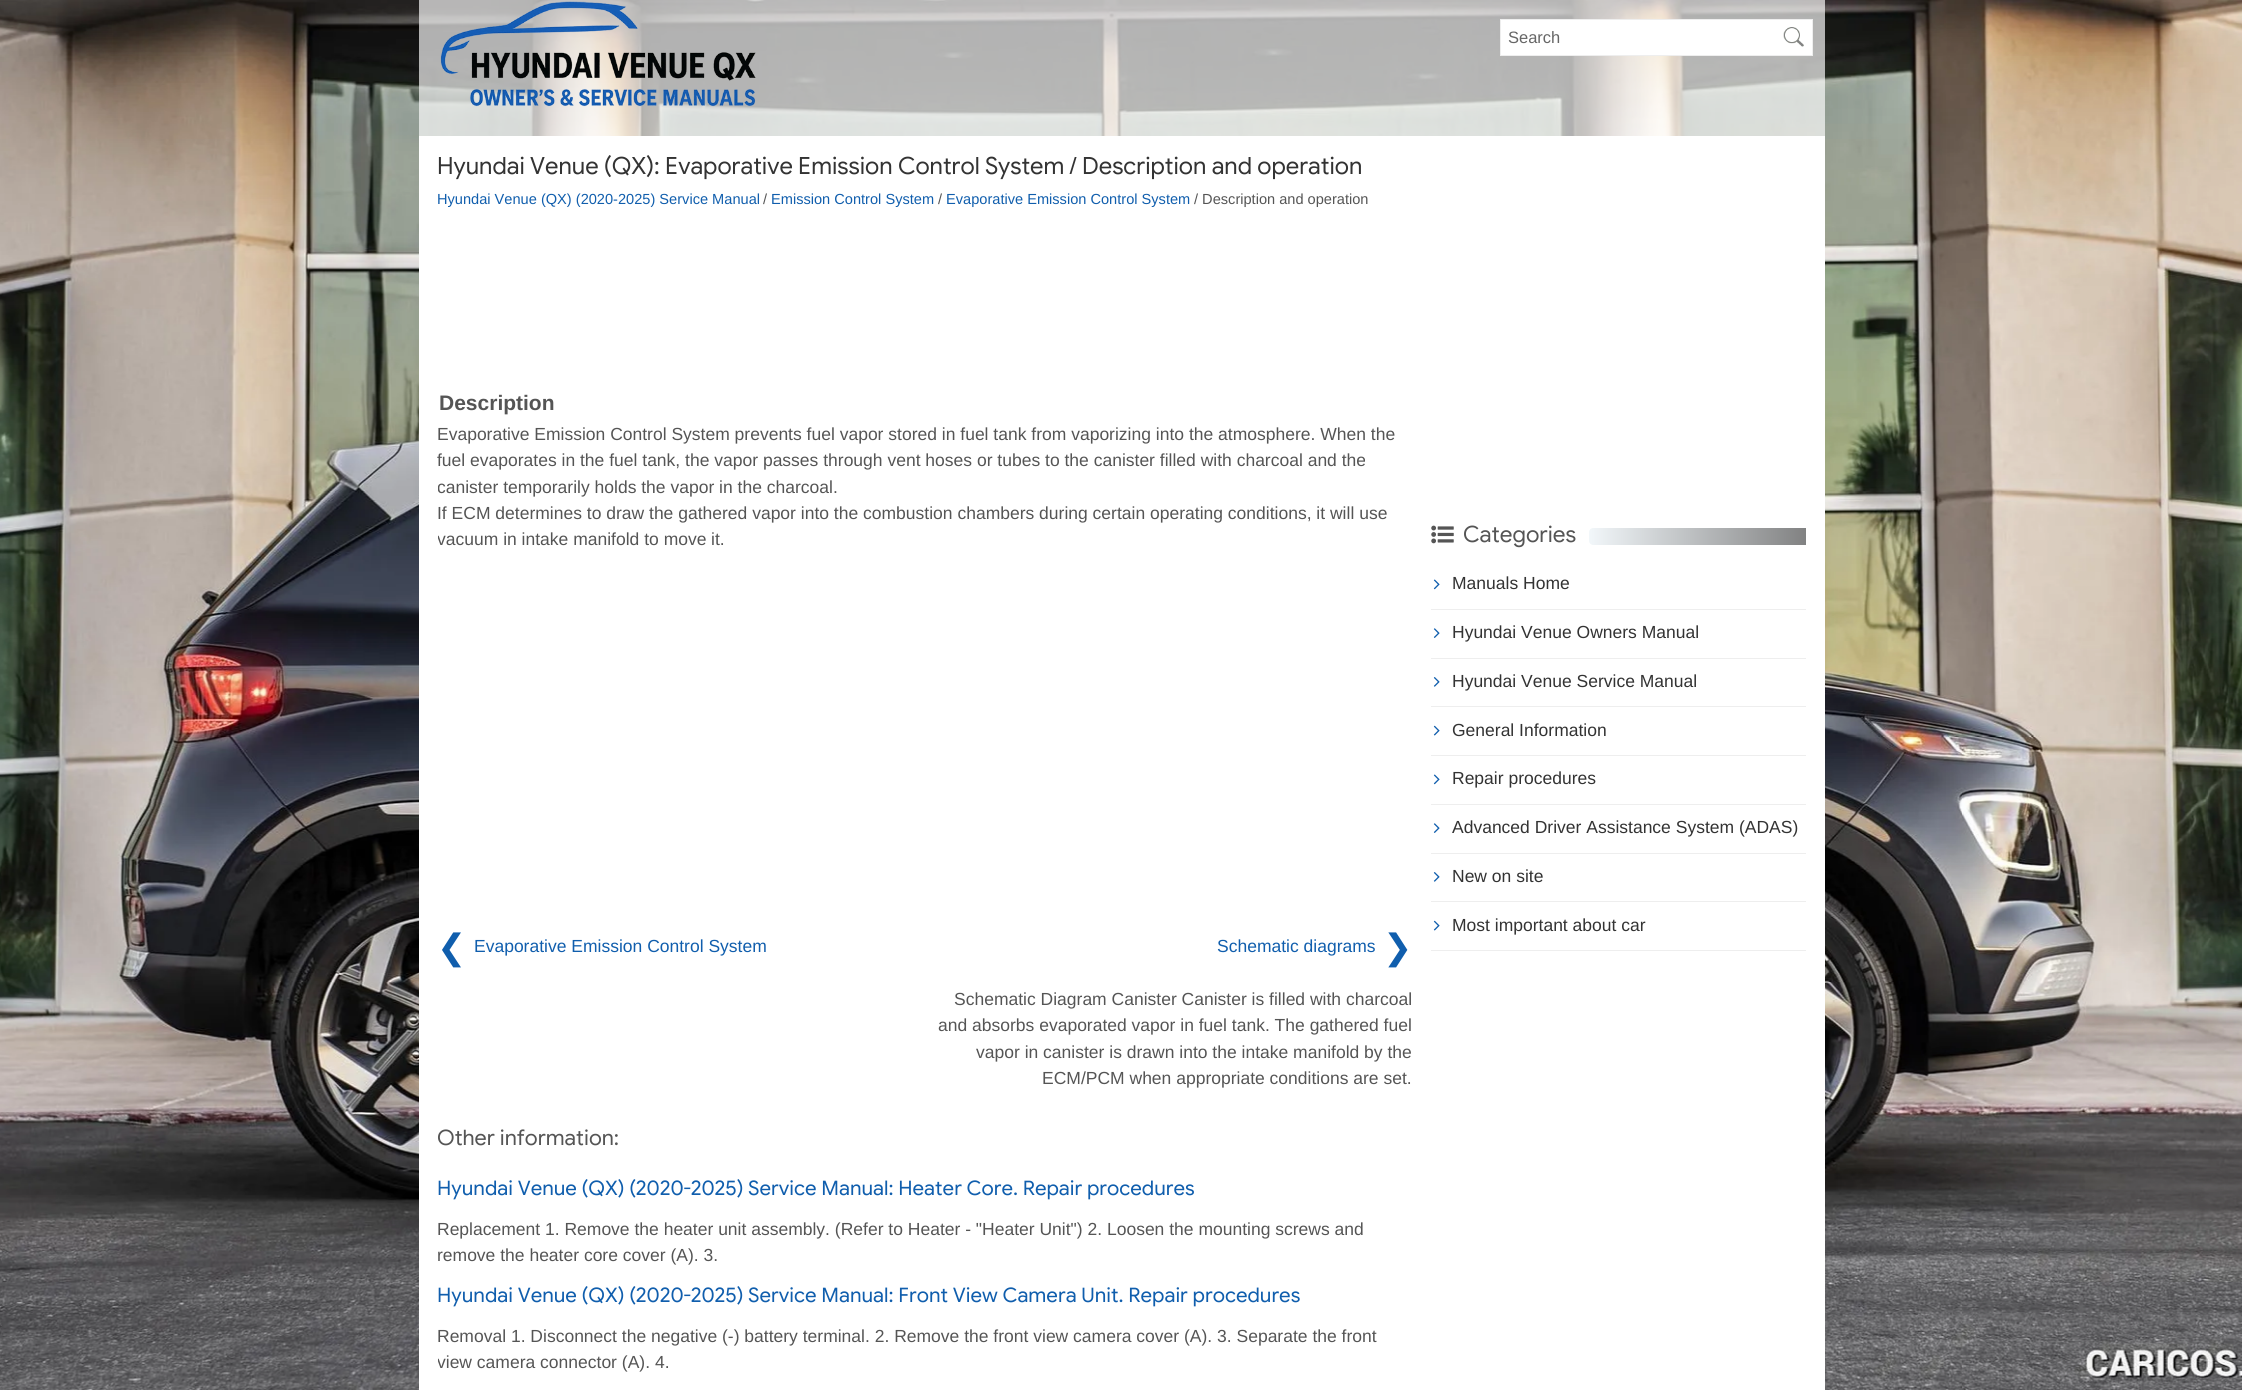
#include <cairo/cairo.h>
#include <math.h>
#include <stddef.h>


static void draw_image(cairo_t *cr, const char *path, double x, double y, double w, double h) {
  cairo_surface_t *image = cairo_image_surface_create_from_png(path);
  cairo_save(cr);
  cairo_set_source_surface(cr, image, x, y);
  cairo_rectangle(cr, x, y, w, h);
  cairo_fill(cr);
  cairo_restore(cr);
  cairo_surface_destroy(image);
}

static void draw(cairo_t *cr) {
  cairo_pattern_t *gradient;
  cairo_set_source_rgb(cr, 1, 1, 1);
  cairo_paint(cr);
  draw_image(cr, "images/1.png", 0, 0, 2242, 1390);
  cairo_set_source_rgba(cr, 1, 1, 1, 0.67);
  cairo_rectangle(cr, 419, 0, 1406, 136);
  cairo_fill(cr);
  draw_image(cr, "images/2.png", 440, 1, 316, 106);
  cairo_set_source_rgb(cr, 1, 1, 1);
  cairo_rectangle(cr, 1500.5, 19.5, 312, 36);
  cairo_fill_preserve(cr);
  cairo_set_source_rgb(cr, 238 / 255.0, 238 / 255.0, 238 / 255.0);
  cairo_set_line_width(cr, 1);
  cairo_stroke(cr);
  draw_image(cr, "images/3.png", 1783, 27, 21, 20);
  cairo_set_source_rgb(cr, 1, 1, 1);
  cairo_rectangle(cr, 419, 136, 1406, 1254);
  cairo_fill(cr);
  draw_image(cr, "images/4.png", 1431, 525, 23, 19);
  gradient = cairo_pattern_create_linear(1589, 536, 1839, 536);
  cairo_pattern_add_color_stop_rgba(gradient, 0, 242 / 255.0, 247 / 255.0, 250 / 255.0, 1);
  cairo_pattern_add_color_stop_rgba(gradient, 1, 112 / 255.0, 112 / 255.0, 112 / 255.0, 1);
  cairo_set_source(cr, gradient);
  cairo_pattern_destroy(gradient);
  cairo_new_path(cr);
  cairo_move_to(cr, 1593, 528);
  cairo_line_to(cr, 1806, 528);
  cairo_line_to(cr, 1806, 545);
  cairo_line_to(cr, 1593, 545);
  cairo_curve_to(cr, 1591, 545, 1589, 543, 1589, 541);
  cairo_line_to(cr, 1589, 532);
  cairo_curve_to(cr, 1589, 530, 1591, 528, 1593, 528);
  cairo_close_path(cr);
  cairo_fill(cr);
  cairo_set_source_rgb(cr, 238 / 255.0, 238 / 255.0, 238 / 255.0);
  cairo_rectangle(cr, 1431, 609, 375, 1);
  cairo_fill(cr);
  draw_image(cr, "images/5.png", 1433, 579, 7, 11);
  cairo_rectangle(cr, 1431, 658, 375, 1);
  cairo_fill(cr);
  draw_image(cr, "images/6.png", 1433, 628, 7, 10);
  cairo_rectangle(cr, 1431, 706, 375, 1);
  cairo_fill(cr);
  draw_image(cr, "images/7.png", 1433, 677, 7, 10);
  cairo_rectangle(cr, 1431, 755, 375, 1);
  cairo_fill(cr);
  draw_image(cr, "images/8.png", 1433, 725, 7, 11);
  cairo_rectangle(cr, 1431, 804, 375, 1);
  cairo_fill(cr);
  draw_image(cr, "images/5.png", 1433, 774, 7, 11);
  cairo_rectangle(cr, 1431, 853, 375, 1);
  cairo_fill(cr);
  draw_image(cr, "images/6.png", 1433, 823, 7, 10);
  cairo_rectangle(cr, 1431, 901, 375, 1);
  cairo_fill(cr);
  draw_image(cr, "images/7.png", 1433, 872, 7, 10);
  cairo_rectangle(cr, 1431, 950, 375, 1);
  cairo_fill(cr);
  draw_image(cr, "images/8.png", 1433, 920, 7, 11);
  cairo_select_font_face(cr, "Liberation Sans", CAIRO_FONT_SLANT_NORMAL, CAIRO_FONT_WEIGHT_NORMAL);
  cairo_set_font_size(cr, 16.5);
  cairo_set_source_rgb(cr, 102 / 255.0, 102 / 255.0, 102 / 255.0);
  cairo_move_to(cr, 1508, 43);
  cairo_show_text(cr, "Search");
  cairo_select_font_face(cr, "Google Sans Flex", CAIRO_FONT_SLANT_NORMAL, CAIRO_FONT_WEIGHT_NORMAL);
  cairo_set_font_size(cr, 23.75);
  cairo_set_source_rgb(cr, 51 / 255.0, 51 / 255.0, 51 / 255.0);
  cairo_move_to(cr, 437, 174);
  cairo_show_text(cr, "Hyundai Venue (QX): Evaporative Emission Control System / Description and operation");
  cairo_select_font_face(cr, "Liberation Sans", CAIRO_FONT_SLANT_NORMAL, CAIRO_FONT_WEIGHT_NORMAL);
  cairo_set_font_size(cr, 14.6);
  cairo_set_source_rgb(cr, 16 / 255.0, 94 / 255.0, 173 / 255.0);
  cairo_move_to(cr, 437, 204);
  cairo_show_text(cr, "Hyundai Venue (QX) (2020-2025) Service Manual");
  cairo_set_source_rgb(cr, 85 / 255.0, 85 / 255.0, 85 / 255.0);
  cairo_move_to(cr, 763, 204);
  cairo_show_text(cr, "/");
  cairo_set_source_rgb(cr, 16 / 255.0, 94 / 255.0, 173 / 255.0);
  cairo_move_to(cr, 771, 204);
  cairo_show_text(cr, "Emission Control System");
  cairo_set_source_rgb(cr, 85 / 255.0, 85 / 255.0, 85 / 255.0);
  cairo_move_to(cr, 938, 204);
  cairo_show_text(cr, "/");
  cairo_set_source_rgb(cr, 16 / 255.0, 94 / 255.0, 173 / 255.0);
  cairo_move_to(cr, 946, 204);
  cairo_show_text(cr, "Evaporative Emission Control System");
  cairo_set_source_rgb(cr, 85 / 255.0, 85 / 255.0, 85 / 255.0);
  cairo_move_to(cr, 1194, 204);
  cairo_show_text(cr, "/ Description and operation");
  cairo_select_font_face(cr, "Liberation Sans", CAIRO_FONT_SLANT_NORMAL, CAIRO_FONT_WEIGHT_BOLD);
  cairo_set_font_size(cr, 21);
  cairo_move_to(cr, 439, 410);
  cairo_show_text(cr, "Description");
  cairo_select_font_face(cr, "Liberation Sans", CAIRO_FONT_SLANT_NORMAL, CAIRO_FONT_WEIGHT_NORMAL);
  cairo_set_font_size(cr, 17.5);
  cairo_move_to(cr, 437, 440);
  cairo_show_text(cr, "Evaporative Emission Control System prevents fuel vapor stored in fuel tank from vaporizing into the atmosphere. When the");
  cairo_move_to(cr, 437, 466);
  cairo_show_text(cr, "fuel evaporates in the fuel tank, the vapor passes through vent hoses or tubes to the canister filled with charcoal and the");
  cairo_save(cr);
  cairo_rectangle(cr, 438, 155, 975, 1234);
  cairo_clip(cr);
  cairo_move_to(cr, 437, 493);
  cairo_show_text(cr, "canister temporarily holds the vapor in the charcoal.");
  cairo_restore(cr);
  cairo_move_to(cr, 437, 519);
  cairo_show_text(cr, "If ECM determines to draw the gathered vapor into the combustion chambers during certain operating conditions, it will use");
  cairo_save(cr);
  cairo_rectangle(cr, 438, 155, 975, 1234);
  cairo_clip(cr);
  cairo_move_to(cr, 437, 545);
  cairo_show_text(cr, "vacuum in intake manifold to move");
  cairo_restore(cr);
  cairo_move_to(cr, 711, 545);
  cairo_show_text(cr, "it.");
  cairo_select_font_face(cr, "DejaVu Sans", CAIRO_FONT_SLANT_NORMAL, CAIRO_FONT_WEIGHT_NORMAL);
  cairo_set_font_size(cr, 35);
  cairo_set_source_rgb(cr, 16 / 255.0, 94 / 255.0, 173 / 255.0);
  cairo_move_to(cr, 437, 959);
  cairo_show_text(cr, "❮");
  cairo_select_font_face(cr, "Liberation Sans", CAIRO_FONT_SLANT_NORMAL, CAIRO_FONT_WEIGHT_NORMAL);
  cairo_set_font_size(cr, 17.5);
  cairo_move_to(cr, 474, 952);
  cairo_show_text(cr, "Evaporative Emission Control System");
  cairo_move_to(cr, 1217, 952);
  cairo_show_text(cr, "Schematic diagrams");
  cairo_select_font_face(cr, "DejaVu Sans", CAIRO_FONT_SLANT_NORMAL, CAIRO_FONT_WEIGHT_NORMAL);
  cairo_set_font_size(cr, 35);
  cairo_move_to(cr, 1383, 959);
  cairo_show_text(cr, "❯");
  cairo_select_font_face(cr, "Liberation Sans", CAIRO_FONT_SLANT_NORMAL, CAIRO_FONT_WEIGHT_NORMAL);
  cairo_set_font_size(cr, 17.5);
  cairo_set_source_rgb(cr, 85 / 255.0, 85 / 255.0, 85 / 255.0);
  cairo_move_to(cr, 954, 1005);
  cairo_show_text(cr, "Schematic Diagram Canister Canister is filled with charcoal");
  cairo_move_to(cr, 938, 1031);
  cairo_show_text(cr, "and absorbs evaporated vapor in fuel tank. The gathered fuel");
  cairo_move_to(cr, 976, 1058);
  cairo_show_text(cr, "vapor in canister is drawn into the intake manifold by the");
  cairo_move_to(cr, 1042, 1084);
  cairo_show_text(cr, "ECM/PCM when appropriate conditions are set.");
  cairo_select_font_face(cr, "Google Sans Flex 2", CAIRO_FONT_SLANT_NORMAL, CAIRO_FONT_WEIGHT_NORMAL);
  cairo_set_font_size(cr, 21.25);
  cairo_move_to(cr, 437, 1145);
  cairo_show_text(cr, "Other information:");
  cairo_select_font_face(cr, "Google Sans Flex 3", CAIRO_FONT_SLANT_NORMAL, CAIRO_FONT_WEIGHT_NORMAL);
  cairo_set_font_size(cr, 20);
  cairo_set_source_rgb(cr, 16 / 255.0, 94 / 255.0, 173 / 255.0);
  cairo_move_to(cr, 437, 1195);
  cairo_show_text(cr, "Hyundai Venue (QX) (2020-2025) Service Manual: Heater Core. Repair procedures");
  cairo_select_font_face(cr, "Liberation Sans", CAIRO_FONT_SLANT_NORMAL, CAIRO_FONT_WEIGHT_NORMAL);
  cairo_set_font_size(cr, 17.5);
  cairo_set_source_rgb(cr, 85 / 255.0, 85 / 255.0, 85 / 255.0);
  cairo_move_to(cr, 437, 1235);
  cairo_show_text(cr, "Replacement 1. Remove the heater unit assembly. (Refer to Heater - \"Heater Unit\") 2. Loosen the mounting screws and");
  cairo_move_to(cr, 437, 1261);
  cairo_show_text(cr, "remove the heater core cover (A). 3.");
  cairo_select_font_face(cr, "Google Sans Flex 3", CAIRO_FONT_SLANT_NORMAL, CAIRO_FONT_WEIGHT_NORMAL);
  cairo_set_font_size(cr, 20);
  cairo_set_source_rgb(cr, 16 / 255.0, 94 / 255.0, 173 / 255.0);
  cairo_move_to(cr, 437, 1302);
  cairo_show_text(cr, "Hyundai Venue (QX) (2020-2025) Service Manual: Front View Camera Unit. Repair procedures");
  cairo_select_font_face(cr, "Liberation Sans", CAIRO_FONT_SLANT_NORMAL, CAIRO_FONT_WEIGHT_NORMAL);
  cairo_set_font_size(cr, 17.5);
  cairo_set_source_rgb(cr, 85 / 255.0, 85 / 255.0, 85 / 255.0);
  cairo_move_to(cr, 437, 1342);
  cairo_show_text(cr, "Removal 1. Disconnect the negative (-) battery terminal. 2. Remove the front view camera cover (A). 3. Separate the front");
  cairo_save(cr);
  cairo_rectangle(cr, 438, 155, 975, 1234);
  cairo_clip(cr);
  cairo_move_to(cr, 437, 1368);
  cairo_show_text(cr, "view camera connector (A).");
  cairo_restore(cr);
  cairo_move_to(cr, 655, 1368);
  cairo_show_text(cr, "4.");
  cairo_select_font_face(cr, "Google Sans Flex", CAIRO_FONT_SLANT_NORMAL, CAIRO_FONT_WEIGHT_NORMAL);
  cairo_set_font_size(cr, 22.5);
  cairo_move_to(cr, 1463, 542);
  cairo_show_text(cr, "Categories");
  cairo_select_font_face(cr, "Liberation Sans", CAIRO_FONT_SLANT_NORMAL, CAIRO_FONT_WEIGHT_NORMAL);
  cairo_set_font_size(cr, 17.5);
  cairo_set_source_rgb(cr, 51 / 255.0, 51 / 255.0, 51 / 255.0);
  cairo_move_to(cr, 1452, 589);
  cairo_show_text(cr, "Manuals Home");
  cairo_move_to(cr, 1452, 638);
  cairo_show_text(cr, "Hyundai Venue Owners Manual");
  cairo_move_to(cr, 1452, 687);
  cairo_show_text(cr, "Hyundai Venue Service Manual");
  cairo_move_to(cr, 1452, 736);
  cairo_show_text(cr, "General Information");
  cairo_move_to(cr, 1452, 784);
  cairo_show_text(cr, "Repair procedures");
  cairo_move_to(cr, 1452, 833);
  cairo_show_text(cr, "Advanced Driver Assistance System (ADAS)");
  cairo_move_to(cr, 1452, 882);
  cairo_show_text(cr, "New on site");
  cairo_move_to(cr, 1452, 931);
  cairo_show_text(cr, "Most important about car");
}

int main(void) {
  cairo_surface_t *surface = cairo_image_surface_create(CAIRO_FORMAT_RGB24, 2242, 1390);
  cairo_t *cr = cairo_create(surface);
  cairo_font_options_t *options = cairo_font_options_create();
  cairo_font_options_set_hint_metrics(options, CAIRO_HINT_METRICS_OFF);
  cairo_font_options_set_hint_style(options, CAIRO_HINT_STYLE_NONE);
  cairo_set_font_options(cr, options);
  cairo_set_miter_limit(cr, 4);
  draw(cr);
  cairo_surface_write_to_png(surface, "out.png");
  cairo_font_options_destroy(options);
  cairo_destroy(cr);
  cairo_surface_destroy(surface);
  return 0;
}
